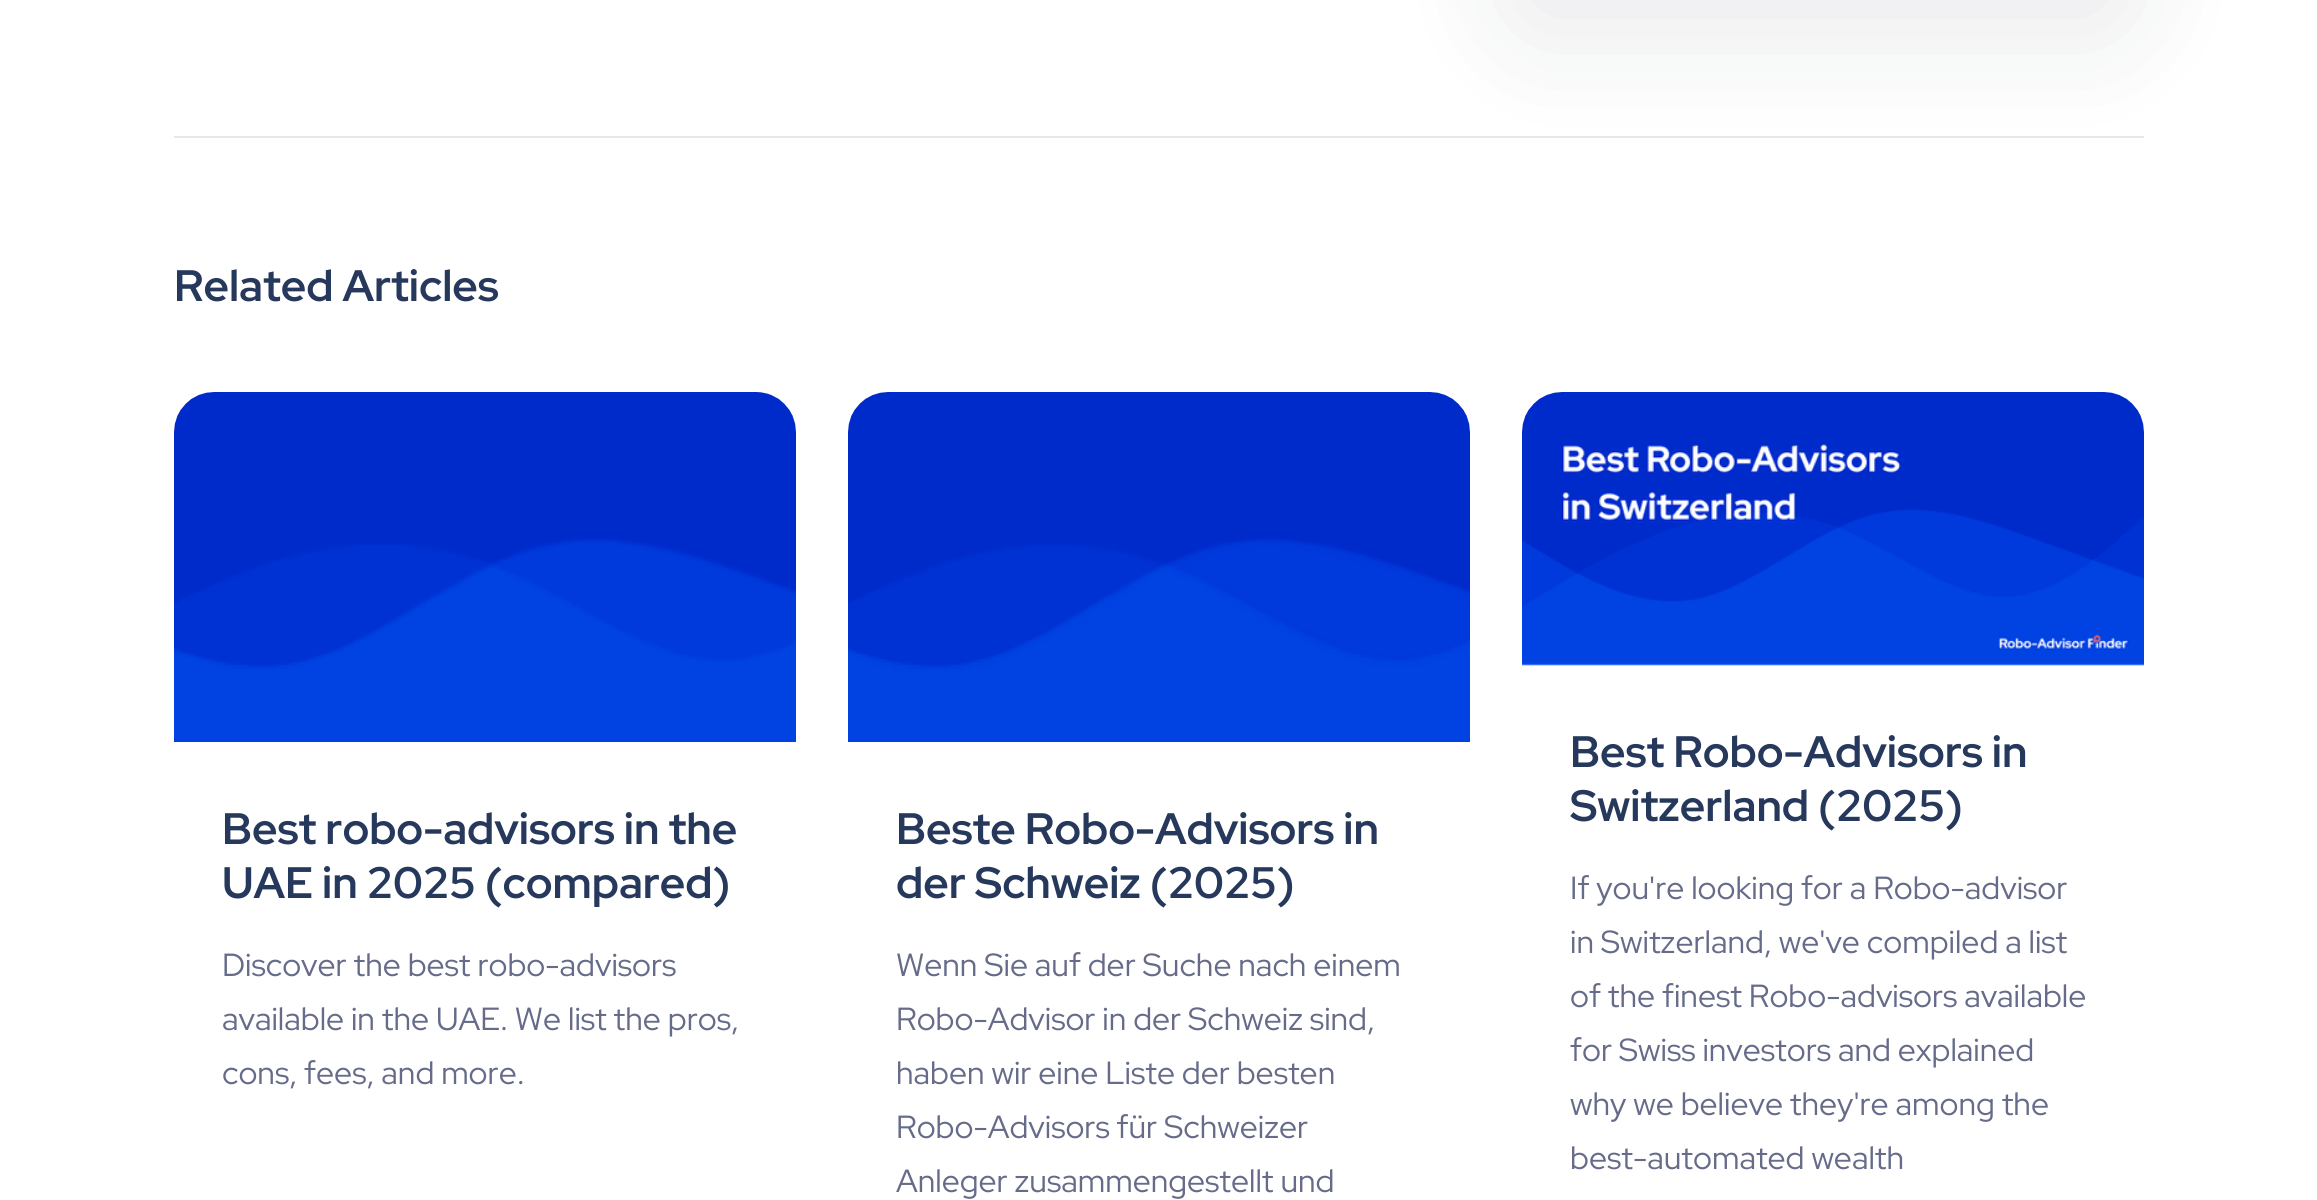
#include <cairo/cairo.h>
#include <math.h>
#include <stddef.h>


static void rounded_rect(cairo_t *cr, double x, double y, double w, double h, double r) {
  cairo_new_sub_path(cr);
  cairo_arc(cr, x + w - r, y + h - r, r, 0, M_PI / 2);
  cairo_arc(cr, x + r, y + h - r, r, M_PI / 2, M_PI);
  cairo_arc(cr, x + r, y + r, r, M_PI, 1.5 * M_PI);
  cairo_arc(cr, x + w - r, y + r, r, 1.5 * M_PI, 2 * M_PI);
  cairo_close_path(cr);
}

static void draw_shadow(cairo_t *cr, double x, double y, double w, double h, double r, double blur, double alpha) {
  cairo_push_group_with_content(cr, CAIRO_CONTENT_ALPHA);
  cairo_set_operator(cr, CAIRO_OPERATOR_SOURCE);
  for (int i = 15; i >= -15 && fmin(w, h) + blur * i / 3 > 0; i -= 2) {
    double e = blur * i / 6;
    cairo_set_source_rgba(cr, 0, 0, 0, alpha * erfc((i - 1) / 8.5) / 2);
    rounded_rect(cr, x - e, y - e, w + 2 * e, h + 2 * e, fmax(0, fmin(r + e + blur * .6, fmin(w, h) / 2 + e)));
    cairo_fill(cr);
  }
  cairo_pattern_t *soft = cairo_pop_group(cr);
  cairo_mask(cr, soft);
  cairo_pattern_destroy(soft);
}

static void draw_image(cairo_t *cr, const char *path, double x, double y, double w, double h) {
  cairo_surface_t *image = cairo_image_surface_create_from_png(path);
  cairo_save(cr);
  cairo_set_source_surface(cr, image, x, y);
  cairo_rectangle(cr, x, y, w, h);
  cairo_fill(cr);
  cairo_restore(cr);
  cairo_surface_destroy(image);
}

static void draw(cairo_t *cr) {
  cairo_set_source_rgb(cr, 1, 1, 1);
  cairo_paint(cr);
  cairo_set_source_rgb(cr, 228 / 255.0, 231 / 255.0, 236 / 255.0);
  cairo_rectangle(cr, 174, 136, 1970, 2);
  cairo_fill(cr);
  cairo_set_source_rgb(cr, 18 / 255.0, 25 / 255.0, 49 / 255.0);
  draw_shadow(cr, 1496, -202, 648, 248, 40, 54, 0.08);
  draw_image(cr, "images/1.png", 174, 392, 622, 350);
  draw_image(cr, "images/2.png", 848, 392, 622, 350);
  draw_image(cr, "images/3.png", 1522, 392, 622, 274);
  cairo_select_font_face(cr, "Red Hat Display", CAIRO_FONT_SLANT_NORMAL, CAIRO_FONT_WEIGHT_BOLD);
  cairo_set_font_size(cr, 44);
  cairo_set_source_rgb(cr, 38 / 255.0, 57 / 255.0, 92 / 255.0);
  cairo_move_to(cr, 174, 301);
  cairo_show_text(cr, "Related Articles");
  cairo_move_to(cr, 222, 844);
  cairo_show_text(cr, "Best robo-advisors in the");
  cairo_move_to(cr, 222, 898);
  cairo_show_text(cr, "UAE in 2025 (compared)");
  cairo_select_font_face(cr, "Red Hat Display", CAIRO_FONT_SLANT_NORMAL, CAIRO_FONT_WEIGHT_NORMAL);
  cairo_set_font_size(cr, 32);
  cairo_set_source_rgb(cr, 101 / 255.0, 107 / 255.0, 137 / 255.0);
  cairo_move_to(cr, 222, 976);
  cairo_show_text(cr, "Discover the best robo-advisors");
  cairo_move_to(cr, 222, 1030);
  cairo_show_text(cr, "available in the UAE. We list the pros,");
  cairo_move_to(cr, 222, 1084);
  cairo_show_text(cr, "cons, fees, and more.");
  cairo_select_font_face(cr, "Red Hat Display", CAIRO_FONT_SLANT_NORMAL, CAIRO_FONT_WEIGHT_BOLD);
  cairo_set_font_size(cr, 44);
  cairo_set_source_rgb(cr, 38 / 255.0, 57 / 255.0, 92 / 255.0);
  cairo_move_to(cr, 896, 844);
  cairo_show_text(cr, "Beste Robo-Advisors in");
  cairo_move_to(cr, 896, 898);
  cairo_show_text(cr, "der Schweiz (2025)");
  cairo_select_font_face(cr, "Red Hat Display", CAIRO_FONT_SLANT_NORMAL, CAIRO_FONT_WEIGHT_NORMAL);
  cairo_set_font_size(cr, 32);
  cairo_set_source_rgb(cr, 101 / 255.0, 107 / 255.0, 137 / 255.0);
  cairo_move_to(cr, 896, 976);
  cairo_show_text(cr, "Wenn Sie auf der Suche nach einem");
  cairo_move_to(cr, 896, 1030);
  cairo_show_text(cr, "Robo-Advisor in der Schweiz sind,");
  cairo_move_to(cr, 896, 1084);
  cairo_show_text(cr, "haben wir eine Liste der besten");
  cairo_move_to(cr, 896, 1138);
  cairo_show_text(cr, "Robo-Advisors für Schweizer");
  cairo_move_to(cr, 896, 1192);
  cairo_show_text(cr, "Anleger zusammengestellt und");
  cairo_select_font_face(cr, "Red Hat Display", CAIRO_FONT_SLANT_NORMAL, CAIRO_FONT_WEIGHT_BOLD);
  cairo_set_font_size(cr, 44);
  cairo_set_source_rgb(cr, 38 / 255.0, 57 / 255.0, 92 / 255.0);
  cairo_move_to(cr, 1570, 767);
  cairo_show_text(cr, "Best Robo-Advisors in");
  cairo_move_to(cr, 1570, 821);
  cairo_show_text(cr, "Switzerland (2025)");
  cairo_select_font_face(cr, "Red Hat Display", CAIRO_FONT_SLANT_NORMAL, CAIRO_FONT_WEIGHT_NORMAL);
  cairo_set_font_size(cr, 32);
  cairo_set_source_rgb(cr, 101 / 255.0, 107 / 255.0, 137 / 255.0);
  cairo_move_to(cr, 1570, 899);
  cairo_show_text(cr, "If you're looking for a Robo-advisor");
  cairo_move_to(cr, 1570, 953);
  cairo_show_text(cr, "in Switzerland, we've compiled a list");
  cairo_move_to(cr, 1570, 1007);
  cairo_show_text(cr, "of the finest Robo-advisors available");
  cairo_move_to(cr, 1570, 1061);
  cairo_show_text(cr, "for Swiss investors and explained");
  cairo_move_to(cr, 1570, 1115);
  cairo_show_text(cr, "why we believe they're among the");
  cairo_move_to(cr, 1570, 1169);
  cairo_show_text(cr, "best-automated wealth");
}

int main(void) {
  cairo_surface_t *surface = cairo_image_surface_create(CAIRO_FORMAT_RGB24, 2317, 1200);
  cairo_t *cr = cairo_create(surface);
  cairo_font_options_t *options = cairo_font_options_create();
  cairo_font_options_set_hint_metrics(options, CAIRO_HINT_METRICS_OFF);
  cairo_font_options_set_hint_style(options, CAIRO_HINT_STYLE_NONE);
  cairo_set_font_options(cr, options);
  cairo_set_miter_limit(cr, 4);
  draw(cr);
  cairo_surface_write_to_png(surface, "out.png");
  cairo_font_options_destroy(options);
  cairo_destroy(cr);
  cairo_surface_destroy(surface);
  return 0;
}
